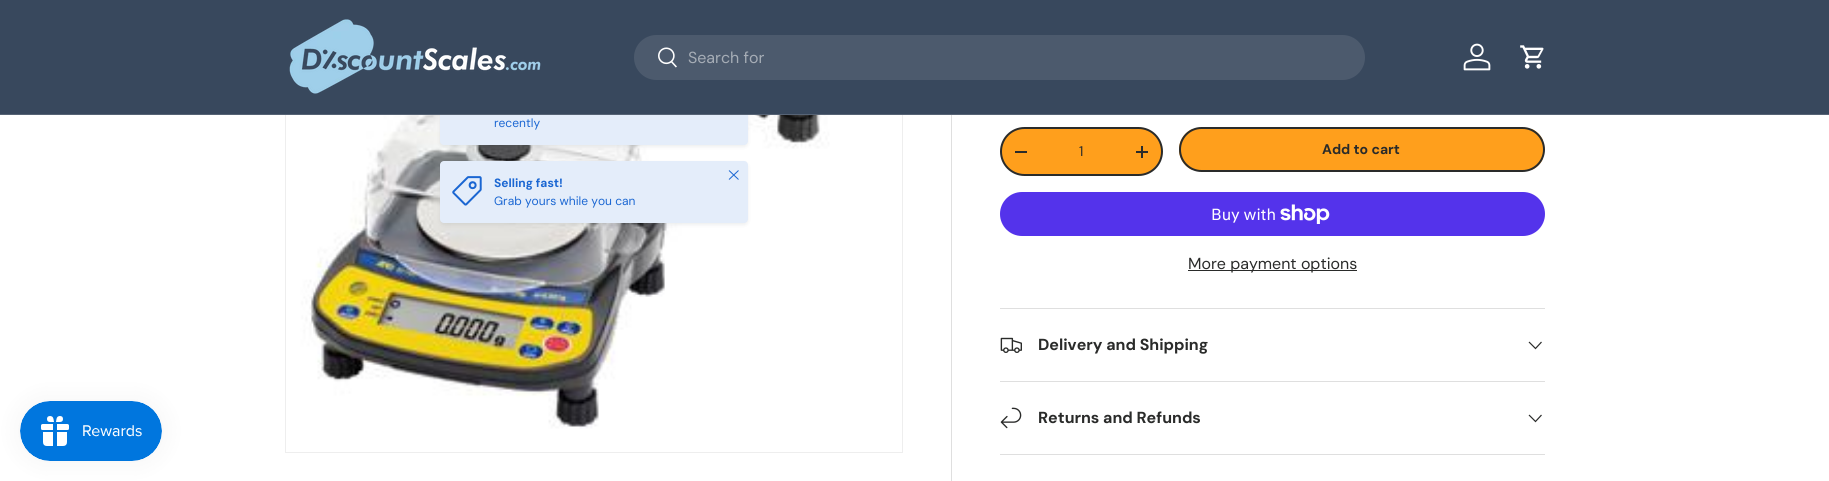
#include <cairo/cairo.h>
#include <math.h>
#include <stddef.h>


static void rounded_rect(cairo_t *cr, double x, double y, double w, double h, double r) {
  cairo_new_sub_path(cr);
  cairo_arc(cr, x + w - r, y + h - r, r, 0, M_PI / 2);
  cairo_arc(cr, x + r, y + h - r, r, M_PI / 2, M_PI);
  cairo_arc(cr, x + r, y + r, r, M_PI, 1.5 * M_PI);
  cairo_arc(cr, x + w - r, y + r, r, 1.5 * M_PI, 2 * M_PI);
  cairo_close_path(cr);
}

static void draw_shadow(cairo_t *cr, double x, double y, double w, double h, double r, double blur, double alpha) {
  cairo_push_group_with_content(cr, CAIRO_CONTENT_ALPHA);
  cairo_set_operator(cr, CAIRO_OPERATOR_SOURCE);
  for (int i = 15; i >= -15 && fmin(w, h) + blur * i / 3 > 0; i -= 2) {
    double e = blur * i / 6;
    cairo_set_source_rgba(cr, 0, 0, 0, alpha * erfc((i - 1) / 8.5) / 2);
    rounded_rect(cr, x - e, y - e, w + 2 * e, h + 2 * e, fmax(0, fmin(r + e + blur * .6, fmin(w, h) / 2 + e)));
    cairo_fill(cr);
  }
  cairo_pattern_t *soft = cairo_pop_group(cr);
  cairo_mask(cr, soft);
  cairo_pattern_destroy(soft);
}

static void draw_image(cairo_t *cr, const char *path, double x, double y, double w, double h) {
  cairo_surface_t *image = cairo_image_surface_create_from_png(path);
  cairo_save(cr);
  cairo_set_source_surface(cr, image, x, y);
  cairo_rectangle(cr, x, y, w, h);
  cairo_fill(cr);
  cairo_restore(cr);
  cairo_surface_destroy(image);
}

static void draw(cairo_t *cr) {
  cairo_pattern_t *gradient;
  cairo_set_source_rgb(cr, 1, 1, 1);
  cairo_paint(cr);
  cairo_rectangle(cr, 285.5, -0.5, 617, 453);
  cairo_set_source_rgb(cr, 238 / 255.0, 238 / 255.0, 238 / 255.0);
  cairo_set_line_width(cr, 1);
  cairo_stroke(cr);
  draw_image(cr, "images/6.png", 286, 115, 616, 337);
  cairo_set_source_rgb(cr, 33 / 255.0, 43 / 255.0, 54 / 255.0);
  draw_shadow(cr, 440, 67, 308, 80, 4, 2, 0.08);
  cairo_set_source_rgb(cr, 228 / 255.0, 237 / 255.0, 250 / 255.0);
  rounded_rect(cr, 440, 65, 308, 80, 4);
  cairo_fill(cr);
  cairo_set_source_rgb(cr, 56 / 255.0, 72 / 255.0, 93 / 255.0);
  cairo_rectangle(cr, 0, 0, 1829, 114);
  cairo_fill(cr);
  cairo_set_source_rgb(cr, 86 / 255.0, 99 / 255.0, 117 / 255.0);
  cairo_rectangle(cr, 0, 114, 1829, 1);
  cairo_fill(cr);
  draw_image(cr, "images/1.png", 289, 19, 252, 75);
  cairo_set_source_rgb(cr, 76 / 255.0, 90 / 255.0, 109 / 255.0);
  rounded_rect(cr, 634, 35, 731, 45, 22.5);
  cairo_fill(cr);
  draw_image(cr, "images/2.png", 658, 47, 19, 21);
  draw_image(cr, "images/3.png", 1463, 43, 28, 28);
  draw_image(cr, "images/4.png", 1520, 45, 24, 24);
  cairo_set_source_rgb(cr, 0, 0, 0);
  draw_shadow(cr, 20, 401, 142, 60, 30, 12.5, 0.05);
  draw_image(cr, "images/5.png", 20, 401, 142, 60);
  cairo_set_source_rgb(cr, 33 / 255.0, 43 / 255.0, 54 / 255.0);
  draw_shadow(cr, 440, 163, 308, 62, 4, 2, 0.08);
  cairo_set_source_rgb(cr, 228 / 255.0, 237 / 255.0, 250 / 255.0);
  rounded_rect(cr, 440, 161, 308, 62, 4);
  cairo_fill(cr);
  cairo_new_path(cr);
  cairo_move_to(cr, 729, 179.5);
  cairo_line_to(cr, 738.5, 170.5);
  cairo_move_to(cr, 729, 170.5);
  cairo_line_to(cr, 738.5, 179.5);
  cairo_set_source_rgb(cr, 26 / 255.0, 102 / 255.0, 210 / 255.0);
  cairo_set_line_join(cr, CAIRO_LINE_JOIN_ROUND);
  cairo_stroke(cr);
  draw_image(cr, "images/7.png", 452, 176, 30, 30);
  cairo_set_source_rgb(cr, 223 / 255.0, 223 / 255.0, 223 / 255.0);
  cairo_rectangle(cr, 951, 115, 1, 366);
  cairo_fill(cr);
  cairo_set_source_rgb(cr, 1, 159 / 255.0, 28 / 255.0);
  rounded_rect(cr, 1001, 128, 161, 47, 23.5);
  cairo_fill_preserve(cr);
  cairo_set_source_rgb(cr, 42 / 255.0, 43 / 255.0, 42 / 255.0);
  cairo_set_line_width(cr, 2);
  cairo_set_line_join(cr, CAIRO_LINE_JOIN_MITER);
  cairo_stroke(cr);
  cairo_rectangle(cr, 1015, 151, 12, 2);
  cairo_fill(cr);
  cairo_rectangle(cr, 1136, 151, 12, 2);
  cairo_fill(cr);
  cairo_rectangle(cr, 1141, 146, 2, 12);
  cairo_fill(cr);
  cairo_save(cr);
  rounded_rect(cr, 1179, 127, 366, 45, 22.5);
  cairo_clip(cr);
  gradient = cairo_pattern_create_linear(484, 21, 1516, 278);
  cairo_pattern_add_color_stop_rgba(gradient, 0.6, 42 / 255.0, 43 / 255.0, 42 / 255.0, 0.07);
  cairo_pattern_add_color_stop_rgba(gradient, 0.6, 1, 159 / 255.0, 28 / 255.0, 1);
  cairo_pattern_add_color_stop_rgba(gradient, 1, 1, 159 / 255.0, 28 / 255.0, 1);
  cairo_set_source(cr, gradient);
  cairo_pattern_destroy(gradient);
  cairo_rectangle(cr, 1179, 129, 364, 41);
  cairo_fill(cr);
  cairo_restore(cr);
  rounded_rect(cr, 1180, 128, 364, 43, 21.5);
  cairo_stroke(cr);
  cairo_set_source_rgb(cr, 84 / 255.0, 51 / 255.0, 235 / 255.0);
  rounded_rect(cr, 1000, 192, 545, 44, 22);
  cairo_fill(cr);
  draw_image(cr, "images/8.png", 1280, 204, 50, 20);
  cairo_set_source_rgb(cr, 42 / 255.0, 43 / 255.0, 42 / 255.0);
  cairo_rectangle(cr, 1188, 270, 169, 1);
  cairo_fill(cr);
  cairo_set_source_rgb(cr, 223 / 255.0, 223 / 255.0, 223 / 255.0);
  cairo_rectangle(cr, 1000, 308, 545, 1);
  cairo_fill(cr);
  cairo_rectangle(cr, 1000, 381, 545, 1);
  cairo_fill(cr);
  draw_image(cr, "images/9.png", 1000, 337, 22, 16);
  cairo_new_path(cr);
  cairo_move_to(cr, 1541.5, 342);
  cairo_line_to(cr, 1535.5, 348.5);
  cairo_line_to(cr, 1529, 342);
  cairo_set_source_rgb(cr, 42 / 255.0, 43 / 255.0, 42 / 255.0);
  cairo_set_line_width(cr, 1.2);
  cairo_stroke(cr);
  cairo_set_source_rgb(cr, 223 / 255.0, 223 / 255.0, 223 / 255.0);
  cairo_rectangle(cr, 1000, 454, 545, 1);
  cairo_fill(cr);
  draw_image(cr, "images/10.png", 1000, 407, 22, 22);
  cairo_new_path(cr);
  cairo_move_to(cr, 1541.5, 415);
  cairo_line_to(cr, 1535.5, 421.5);
  cairo_line_to(cr, 1529, 415);
  cairo_set_source_rgb(cr, 42 / 255.0, 43 / 255.0, 42 / 255.0);
  cairo_stroke(cr);
  cairo_select_font_face(cr, "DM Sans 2", CAIRO_FONT_SLANT_NORMAL, CAIRO_FONT_WEIGHT_NORMAL);
  cairo_set_font_size(cr, 16);
  cairo_set_source_rgb(cr, 166 / 255.0, 173 / 255.0, 182 / 255.0);
  cairo_move_to(cr, 688, 63);
  cairo_show_text(cr, "Search for");
  cairo_select_font_face(cr, "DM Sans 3", CAIRO_FONT_SLANT_NORMAL, CAIRO_FONT_WEIGHT_NORMAL);
  cairo_set_font_size(cr, 12);
  cairo_set_source_rgb(cr, 26 / 255.0, 102 / 255.0, 210 / 255.0);
  cairo_move_to(cr, 494, 127);
  cairo_show_text(cr, "recently");
  cairo_select_font_face(cr, "DM Sans 3", CAIRO_FONT_SLANT_NORMAL, CAIRO_FONT_WEIGHT_BOLD);
  cairo_move_to(cr, 494, 187);
  cairo_show_text(cr, "Selling fast!");
  cairo_select_font_face(cr, "DM Sans 3", CAIRO_FONT_SLANT_NORMAL, CAIRO_FONT_WEIGHT_NORMAL);
  cairo_move_to(cr, 494, 205);
  cairo_show_text(cr, "Grab yours while you can");
  cairo_select_font_face(cr, "DM Sans", CAIRO_FONT_SLANT_NORMAL, CAIRO_FONT_WEIGHT_NORMAL);
  cairo_set_font_size(cr, 14);
  cairo_set_source_rgb(cr, 42 / 255.0, 43 / 255.0, 42 / 255.0);
  cairo_move_to(cr, 1079, 156);
  cairo_show_text(cr, "1");
  cairo_select_font_face(cr, "DM Sans 2", CAIRO_FONT_SLANT_NORMAL, CAIRO_FONT_WEIGHT_BOLD);
  cairo_move_to(cr, 1322, 154);
  cairo_show_text(cr, "Add to cart");
  cairo_select_font_face(cr, "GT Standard", CAIRO_FONT_SLANT_NORMAL, CAIRO_FONT_WEIGHT_NORMAL);
  cairo_set_font_size(cr, 16);
  cairo_set_source_rgb(cr, 1, 1, 1);
  cairo_move_to(cr, 1211, 220);
  cairo_show_text(cr, "Buy with");
  cairo_select_font_face(cr, "DM Sans 2", CAIRO_FONT_SLANT_NORMAL, CAIRO_FONT_WEIGHT_NORMAL);
  cairo_set_source_rgb(cr, 42 / 255.0, 43 / 255.0, 42 / 255.0);
  cairo_move_to(cr, 1188, 269);
  cairo_show_text(cr, "More payment options");
  cairo_select_font_face(cr, "DM Sans", CAIRO_FONT_SLANT_NORMAL, CAIRO_FONT_WEIGHT_BOLD);
  cairo_move_to(cr, 1038, 350);
  cairo_show_text(cr, "Delivery and Shipping");
  cairo_move_to(cr, 1038, 423);
  cairo_show_text(cr, "Returns and Refunds");
}

int main(void) {
  cairo_surface_t *surface = cairo_image_surface_create(CAIRO_FORMAT_RGB24, 1829, 481);
  cairo_t *cr = cairo_create(surface);
  cairo_font_options_t *options = cairo_font_options_create();
  cairo_font_options_set_hint_metrics(options, CAIRO_HINT_METRICS_OFF);
  cairo_font_options_set_hint_style(options, CAIRO_HINT_STYLE_NONE);
  cairo_set_font_options(cr, options);
  cairo_set_miter_limit(cr, 4);
  draw(cr);
  cairo_surface_write_to_png(surface, "out.png");
  cairo_font_options_destroy(options);
  cairo_destroy(cr);
  cairo_surface_destroy(surface);
  return 0;
}
